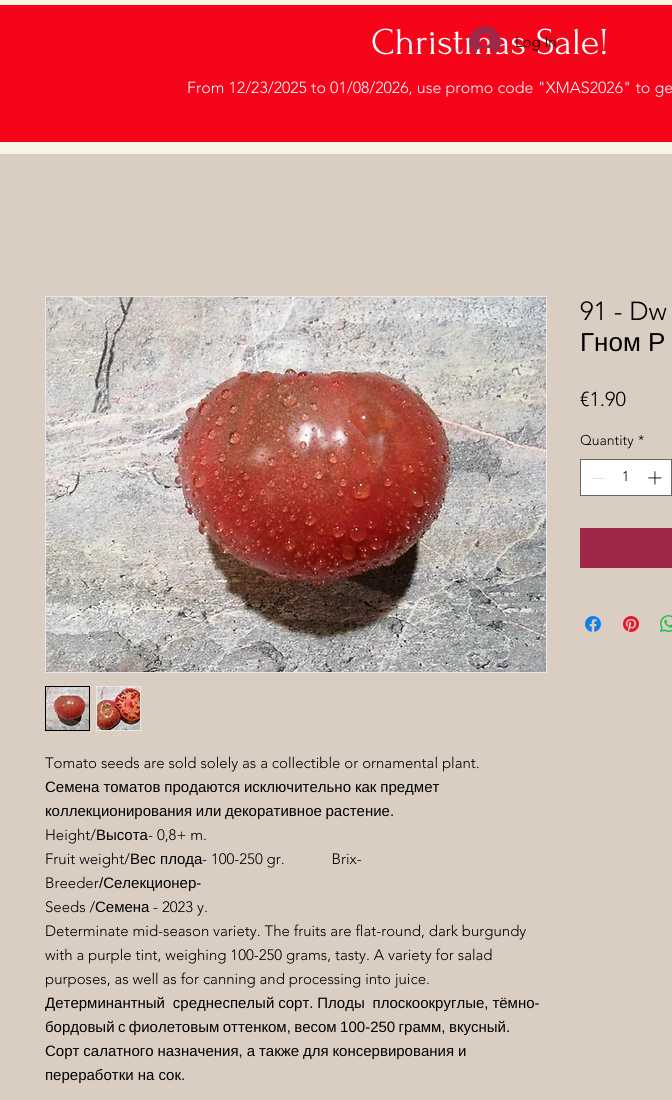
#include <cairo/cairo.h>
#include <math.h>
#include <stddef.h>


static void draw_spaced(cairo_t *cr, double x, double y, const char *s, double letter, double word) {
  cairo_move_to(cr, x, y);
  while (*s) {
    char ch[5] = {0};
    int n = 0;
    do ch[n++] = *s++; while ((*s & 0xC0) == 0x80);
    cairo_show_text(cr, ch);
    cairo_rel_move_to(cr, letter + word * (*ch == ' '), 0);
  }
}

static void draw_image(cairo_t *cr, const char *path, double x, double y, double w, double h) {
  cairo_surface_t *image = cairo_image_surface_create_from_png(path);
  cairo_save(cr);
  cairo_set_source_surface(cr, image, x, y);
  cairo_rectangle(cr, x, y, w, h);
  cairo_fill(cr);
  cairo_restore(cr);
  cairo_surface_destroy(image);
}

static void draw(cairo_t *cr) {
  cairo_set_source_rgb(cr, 218 / 255.0, 206 / 255.0, 194 / 255.0);
  cairo_paint(cr);
  cairo_set_source_rgb(cr, 247 / 255.0, 245 / 255.0, 225 / 255.0);
  cairo_rectangle(cr, 0, 0, 672, 154);
  cairo_fill(cr);
  cairo_set_source_rgb(cr, 246 / 255.0, 4 / 255.0, 25 / 255.0);
  cairo_rectangle(cr, 0, 5, 672, 137);
  cairo_fill(cr);
  cairo_set_source_rgb(cr, 1, 1, 1);
  cairo_rectangle(cr, 580.5, 459.5, 91, 36);
  cairo_fill_preserve(cr);
  cairo_set_source_rgb(cr, 102 / 255.0, 102 / 255.0, 102 / 255.0);
  cairo_set_line_width(cr, 1);
  cairo_stroke(cr);
  cairo_set_source_rgb(cr, 227 / 255.0, 227 / 255.0, 227 / 255.0);
  cairo_rectangle(cr, 592, 478, 13, 1);
  cairo_fill(cr);
  draw_image(cr, "images/2.png", 648, 471, 14, 14);
  cairo_set_source_rgb(cr, 159 / 255.0, 39 / 255.0, 71 / 255.0);
  cairo_rectangle(cr, 580, 528, 92, 40);
  cairo_fill(cr);
  draw_image(cr, "images/3.png", 585, 616, 16, 16);
  draw_image(cr, "images/4.png", 623, 616, 16, 16);
  draw_image(cr, "images/5.png", 660, 615, 12, 17);
  cairo_rectangle(cr, 45.5, 296.5, 501, 376);
  cairo_set_source_rgb(cr, 232 / 255.0, 230 / 255.0, 230 / 255.0);
  cairo_stroke(cr);
  draw_image(cr, "images/6.png", 46, 297, 500, 375);
  cairo_rectangle(cr, 45.5, 686.5, 44, 44);
  cairo_set_source_rgb(cr, 0, 0, 0);
  cairo_stroke(cr);
  draw_image(cr, "images/7.png", 46, 687, 43, 43);
  cairo_set_source_rgb(cr, 232 / 255.0, 230 / 255.0, 230 / 255.0);
  cairo_rectangle(cr, 96, 686, 45, 45);
  cairo_fill(cr);
  draw_image(cr, "images/8.png", 97, 687, 43, 43);
  cairo_select_font_face(cr, "Forum", CAIRO_FONT_SLANT_NORMAL, CAIRO_FONT_WEIGHT_NORMAL);
  cairo_set_font_size(cr, 38);
  cairo_set_source_rgb(cr, 1, 1, 1);
  cairo_move_to(cr, 371, 54);
  cairo_show_text(cr, "Christmas Sale!");
  cairo_select_font_face(cr, "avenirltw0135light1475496 Light", CAIRO_FONT_SLANT_NORMAL, CAIRO_FONT_WEIGHT_NORMAL);
  cairo_set_font_size(cr, 16);
  cairo_move_to(cr, 187, 93);
  cairo_show_text(cr, "From 12/23/2025 to 01/08/2026, use promo code \"XMAS2026\" to ge");
  draw_image(cr, "images/1.png", 469, 26, 32, 32);
  cairo_set_font_size(cr, 15);
  cairo_set_source_rgb(cr, 0, 0, 0);
  cairo_move_to(cr, 515, 47);
  cairo_show_text(cr, "Log In");
  cairo_set_font_size(cr, 26);
  cairo_move_to(cr, 580, 320);
  cairo_show_text(cr, "91 - Dw");
  cairo_select_font_face(cr, "Liberation Sans", CAIRO_FONT_SLANT_NORMAL, CAIRO_FONT_WEIGHT_NORMAL);
  cairo_move_to(cr, 580, 351);
  cairo_show_text(cr, "Гном Р");
  cairo_select_font_face(cr, "avenirltw0135light1475496 Light", CAIRO_FONT_SLANT_NORMAL, CAIRO_FONT_WEIGHT_NORMAL);
  cairo_set_font_size(cr, 20);
  cairo_move_to(cr, 580, 406);
  cairo_show_text(cr, "€1.90");
  cairo_set_font_size(cr, 14);
  cairo_move_to(cr, 580, 445);
  cairo_show_text(cr, "Quantity");
  cairo_move_to(cr, 638, 445);
  cairo_show_text(cr, "*");
  cairo_move_to(cr, 622, 481);
  cairo_show_text(cr, "1");
  cairo_set_font_size(cr, 15);
  cairo_move_to(cr, 45, 768);
  cairo_show_text(cr, "Tomato seeds are sold solely as a collectible or ornamental plant.");
  cairo_select_font_face(cr, "Liberation Sans", CAIRO_FONT_SLANT_NORMAL, CAIRO_FONT_WEIGHT_NORMAL);
  draw_spaced(cr, 45, 792, "Семена томатов продаются исключительно как предмет", 0, -0.25);
  draw_spaced(cr, 45, 816, "коллекционирования или декоративное растение.", 0, -0.5);
  cairo_select_font_face(cr, "avenirltw0135light1475496 Light", CAIRO_FONT_SLANT_NORMAL, CAIRO_FONT_WEIGHT_NORMAL);
  cairo_move_to(cr, 45, 840);
  cairo_show_text(cr, "Height/");
  cairo_select_font_face(cr, "Liberation Sans", CAIRO_FONT_SLANT_NORMAL, CAIRO_FONT_WEIGHT_NORMAL);
  cairo_move_to(cr, 96, 840);
  cairo_show_text(cr, "Высота");
  cairo_select_font_face(cr, "avenirltw0135light1475496 Light", CAIRO_FONT_SLANT_NORMAL, CAIRO_FONT_WEIGHT_NORMAL);
  cairo_move_to(cr, 148, 840);
  cairo_show_text(cr, "- 0,8+ m.");
  cairo_move_to(cr, 45, 864);
  cairo_show_text(cr, "Fruit weight/");
  cairo_select_font_face(cr, "Liberation Sans", CAIRO_FONT_SLANT_NORMAL, CAIRO_FONT_WEIGHT_NORMAL);
  cairo_move_to(cr, 130, 864);
  cairo_show_text(cr, "Вес плода");
  cairo_select_font_face(cr, "avenirltw0135light1475496 Light", CAIRO_FONT_SLANT_NORMAL, CAIRO_FONT_WEIGHT_NORMAL);
  cairo_move_to(cr, 202, 864);
  cairo_show_text(cr, "- 100-250 gr.            Brix-");
  cairo_move_to(cr, 45, 888);
  cairo_show_text(cr, "Breeder");
  cairo_select_font_face(cr, "Liberation Sans", CAIRO_FONT_SLANT_NORMAL, CAIRO_FONT_WEIGHT_NORMAL);
  cairo_move_to(cr, 99, 888);
  cairo_show_text(cr, "/Селекционер-");
  cairo_select_font_face(cr, "avenirltw0135light1475496 Light", CAIRO_FONT_SLANT_NORMAL, CAIRO_FONT_WEIGHT_NORMAL);
  cairo_move_to(cr, 45, 912);
  cairo_show_text(cr, "Seeds /");
  cairo_select_font_face(cr, "Liberation Sans", CAIRO_FONT_SLANT_NORMAL, CAIRO_FONT_WEIGHT_NORMAL);
  cairo_move_to(cr, 95, 912);
  cairo_show_text(cr, "Семена");
  cairo_select_font_face(cr, "avenirltw0135light1475496 Light", CAIRO_FONT_SLANT_NORMAL, CAIRO_FONT_WEIGHT_NORMAL);
  cairo_move_to(cr, 153, 912);
  cairo_show_text(cr, "- 2023 y.");
  cairo_move_to(cr, 45, 936);
  cairo_show_text(cr, "Determinate mid-season variety. The fruits are flat-round, dark burgundy");
  cairo_move_to(cr, 45, 960);
  cairo_show_text(cr, "with a purple tint, weighing 100-250 grams, tasty. A variety for salad");
  cairo_move_to(cr, 45, 984);
  cairo_show_text(cr, "purposes, as well as for canning and processing into juice.");
  cairo_select_font_face(cr, "Liberation Sans", CAIRO_FONT_SLANT_NORMAL, CAIRO_FONT_WEIGHT_NORMAL);
  draw_spaced(cr, 45, 1008, "Детерминантный  среднеспелый сорт. Плоды  плоскоокруглые, тёмно-", 0, -0.25);
  draw_spaced(cr, 45, 1032, "бордовый с фиолетовым оттенком, весом 100-250 грамм, вкусный.", 0, -0.75);
  draw_spaced(cr, 45, 1056, "Сорт салатного назначения, а также для консервирования и", 0, -0.25);
  cairo_move_to(cr, 45, 1080);
  cairo_show_text(cr, "переработки на сок.");
}

int main(void) {
  cairo_surface_t *surface = cairo_image_surface_create(CAIRO_FORMAT_RGB24, 672, 1100);
  cairo_t *cr = cairo_create(surface);
  cairo_font_options_t *options = cairo_font_options_create();
  cairo_font_options_set_hint_metrics(options, CAIRO_HINT_METRICS_OFF);
  cairo_font_options_set_hint_style(options, CAIRO_HINT_STYLE_NONE);
  cairo_set_font_options(cr, options);
  cairo_set_miter_limit(cr, 4);
  draw(cr);
  cairo_surface_write_to_png(surface, "out.png");
  cairo_font_options_destroy(options);
  cairo_destroy(cr);
  cairo_surface_destroy(surface);
  return 0;
}
